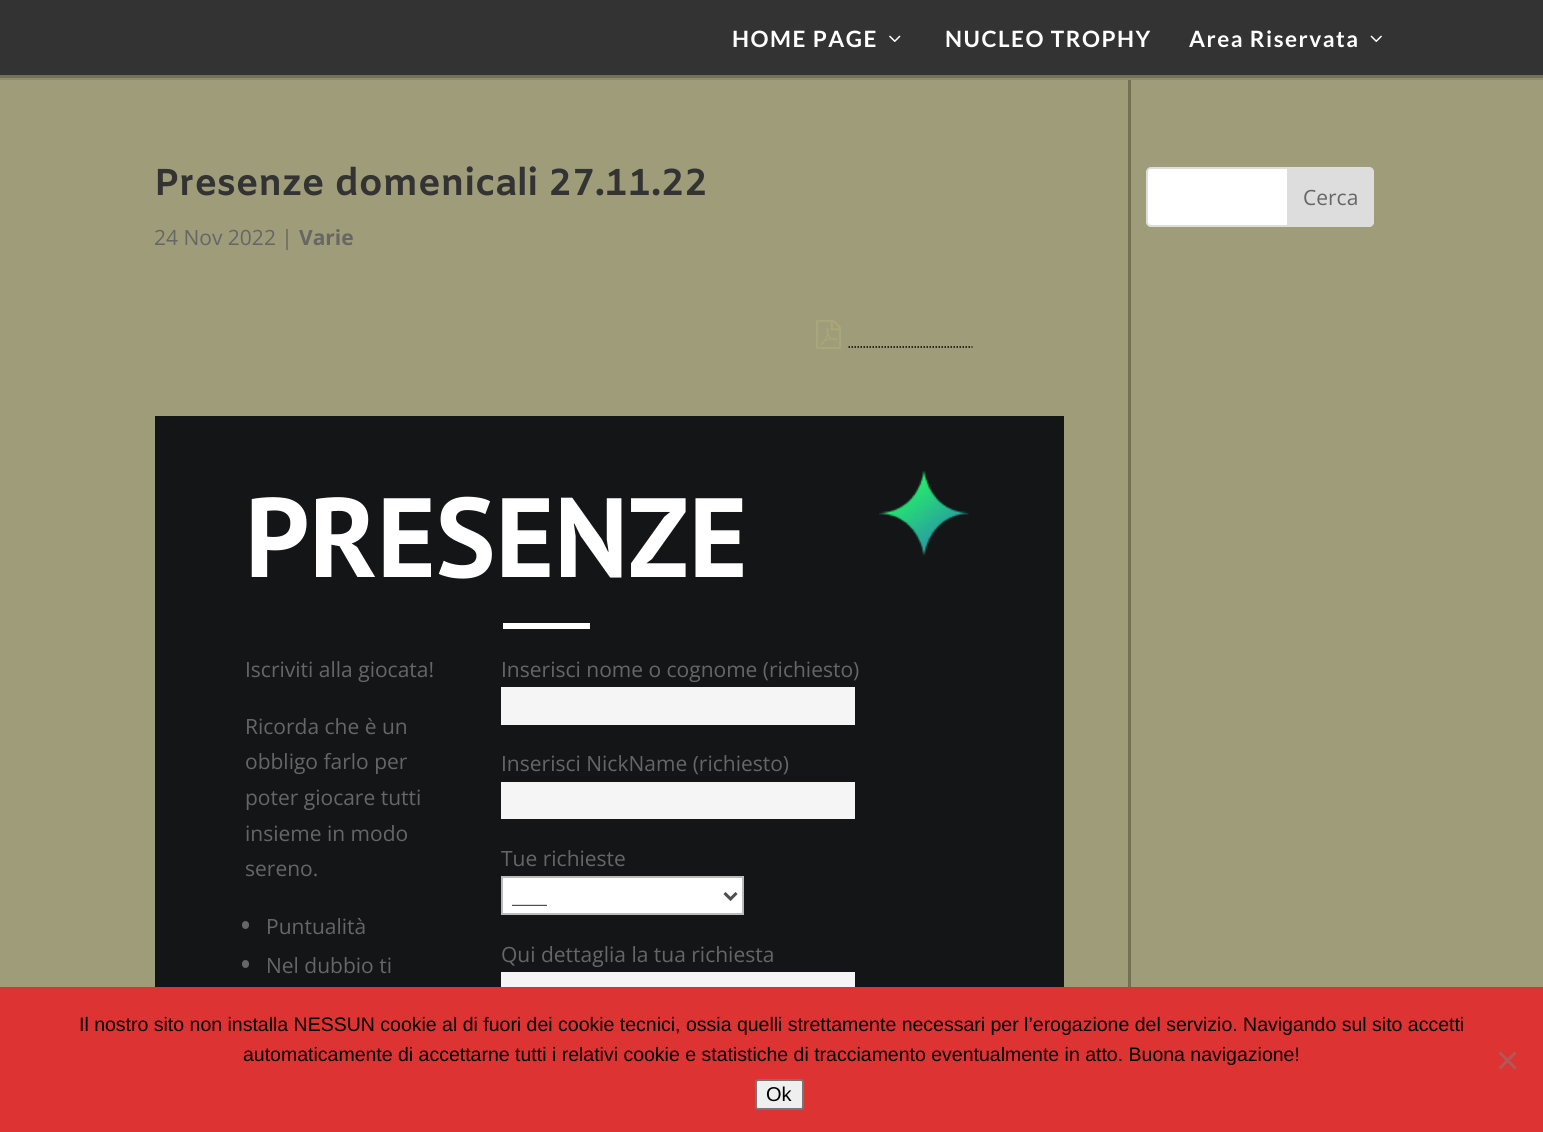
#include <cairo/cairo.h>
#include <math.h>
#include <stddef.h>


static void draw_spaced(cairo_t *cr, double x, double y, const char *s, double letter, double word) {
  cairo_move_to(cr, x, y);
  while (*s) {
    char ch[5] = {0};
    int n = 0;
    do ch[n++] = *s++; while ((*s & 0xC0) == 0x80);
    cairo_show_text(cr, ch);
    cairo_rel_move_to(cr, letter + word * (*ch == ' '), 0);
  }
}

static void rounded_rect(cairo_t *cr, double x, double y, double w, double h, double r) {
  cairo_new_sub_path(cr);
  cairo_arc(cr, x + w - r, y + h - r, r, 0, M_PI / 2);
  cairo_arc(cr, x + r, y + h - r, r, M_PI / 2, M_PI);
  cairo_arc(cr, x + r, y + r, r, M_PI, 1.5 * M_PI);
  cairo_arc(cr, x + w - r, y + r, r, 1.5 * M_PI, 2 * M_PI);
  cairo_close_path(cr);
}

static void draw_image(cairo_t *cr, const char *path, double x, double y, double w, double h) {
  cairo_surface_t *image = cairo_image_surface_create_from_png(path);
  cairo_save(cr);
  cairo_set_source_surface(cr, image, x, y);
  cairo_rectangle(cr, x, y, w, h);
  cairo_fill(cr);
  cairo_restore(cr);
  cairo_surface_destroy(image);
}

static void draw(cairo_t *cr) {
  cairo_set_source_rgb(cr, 159 / 255.0, 156 / 255.0, 122 / 255.0);
  cairo_paint(cr);
  cairo_set_source_rgb(cr, 143 / 255.0, 140 / 255.0, 110 / 255.0);
  cairo_new_path(cr);
  cairo_move_to(cr, 0, 78);
  cairo_line_to(cr, 0, 80);
  cairo_line_to(cr, 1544, 80);
  cairo_line_to(cr, 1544, 2);
  cairo_line_to(cr, 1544, 78);
  cairo_close_path(cr);
  cairo_fill(cr);
  cairo_set_source_rgb(cr, 51 / 255.0, 51 / 255.0, 51 / 255.0);
  cairo_rectangle(cr, 0, 0, 1543, 75);
  cairo_fill(cr);
  cairo_set_source_rgb(cr, 115 / 255.0, 113 / 255.0, 83 / 255.0);
  cairo_rectangle(cr, 0, 75, 1543, 3);
  cairo_fill(cr);
  draw_image(cr, "images/1.png", 889, 35, 12, 7);
  draw_image(cr, "images/2.png", 1370, 35, 12, 7);
  cairo_rectangle(cr, 1128, 80, 3, 907);
  cairo_fill(cr);
  draw_image(cr, "images/3.png", 816, 320, 25, 29);
  cairo_new_path(cr);
  cairo_move_to(cr, 848.5, 347);
  cairo_line_to(cr, 972.5, 347);
  cairo_set_source_rgb(cr, 0, 0, 0);
  cairo_set_line_width(cr, 1.5);
  cairo_set_dash(cr, (double[]){1.5, 1.5}, 2, 0);
  cairo_stroke(cr);
  cairo_set_source_rgb(cr, 19 / 255.0, 21 / 255.0, 23 / 255.0);
  cairo_rectangle(cr, 155, 416, 909, 571);
  cairo_fill(cr);
  cairo_set_source_rgb(cr, 1, 1, 1);
  cairo_rectangle(cr, 503, 623, 87, 6);
  cairo_fill(cr);
  draw_image(cr, "images/4.png", 879, 470, 90, 87);
  cairo_set_source_rgb(cr, 102 / 255.0, 102 / 255.0, 102 / 255.0);
  rounded_rect(cr, 242, 921, 7, 8, 3.5);
  cairo_fill(cr);
  rounded_rect(cr, 242, 960, 7, 8, 3.5);
  cairo_fill(cr);
  cairo_set_source_rgb(cr, 245 / 255.0, 245 / 255.0, 245 / 255.0);
  cairo_rectangle(cr, 501, 687, 354, 38);
  cairo_fill(cr);
  cairo_rectangle(cr, 501, 782, 354, 37);
  cairo_fill(cr);
  cairo_set_source_rgb(cr, 1, 1, 1);
  cairo_rectangle(cr, 502, 877, 241, 37);
  cairo_fill_preserve(cr);
  cairo_set_source_rgb(cr, 187 / 255.0, 187 / 255.0, 187 / 255.0);
  cairo_set_line_width(cr, 2);
  cairo_set_dash(cr, NULL, 0, 0);
  cairo_stroke(cr);
  cairo_new_path(cr);
  cairo_move_to(cr, 724.5, 893);
  cairo_line_to(cr, 730.5, 899);
  cairo_line_to(cr, 736.5, 893);
  cairo_set_source_rgb(cr, 78 / 255.0, 78 / 255.0, 78 / 255.0);
  cairo_set_line_width(cr, 3);
  cairo_stroke(cr);
  cairo_set_source_rgb(cr, 245 / 255.0, 245 / 255.0, 245 / 255.0);
  cairo_rectangle(cr, 501, 972, 354, 15);
  cairo_fill(cr);
  cairo_set_source_rgb(cr, 1, 1, 1);
  rounded_rect(cr, 1147, 168, 226, 58, 4);
  cairo_fill_preserve(cr);
  cairo_set_source_rgb(cr, 221 / 255.0, 221 / 255.0, 221 / 255.0);
  cairo_set_line_width(cr, 2);
  cairo_stroke(cr);
  cairo_new_path(cr);
  cairo_move_to(cr, 1288, 168);
  cairo_line_to(cr, 1369, 168);
  cairo_curve_to(cr, 1371, 168, 1373, 170, 1373, 172);
  cairo_line_to(cr, 1373, 222);
  cairo_curve_to(cr, 1373, 224, 1371, 226, 1369, 226);
  cairo_line_to(cr, 1288, 226);
  cairo_close_path(cr);
  cairo_fill_preserve(cr);
  cairo_stroke(cr);
  cairo_set_source_rgb(cr, 221 / 255.0, 51 / 255.0, 51 / 255.0);
  cairo_rectangle(cr, 0, 987, 1543, 145);
  cairo_fill(cr);
  cairo_set_source_rgb(cr, 175 / 255.0, 90 / 255.0, 90 / 255.0);
  cairo_new_path(cr);
  cairo_move_to(cr, 1514.5, 1051.5);
  cairo_line_to(cr, 1516.5, 1053.5);
  cairo_line_to(cr, 1500.5, 1069.5);
  cairo_line_to(cr, 1498.5, 1067.5);
  cairo_close_path(cr);
  cairo_fill(cr);
  cairo_new_path(cr);
  cairo_move_to(cr, 1498.5, 1053.5);
  cairo_line_to(cr, 1500.5, 1051.5);
  cairo_line_to(cr, 1516.5, 1067.5);
  cairo_line_to(cr, 1514.5, 1069.5);
  cairo_close_path(cr);
  cairo_fill(cr);
  cairo_set_source_rgb(cr, 239 / 255.0, 239 / 255.0, 239 / 255.0);
  rounded_rect(cr, 756, 1080, 47, 29, 2);
  cairo_fill_preserve(cr);
  cairo_set_source_rgb(cr, 118 / 255.0, 118 / 255.0, 118 / 255.0);
  cairo_stroke(cr);
  cairo_select_font_face(cr, "Lato", CAIRO_FONT_SLANT_NORMAL, CAIRO_FONT_WEIGHT_BOLD);
  cairo_set_font_size(cr, 22.5);
  cairo_set_source_rgb(cr, 1, 1, 1);
  draw_spaced(cr, 732, 47, "HOME PAGE", 1.5, 0);
  draw_spaced(cr, 945, 47, "NUCLEO TROPHY", 1.5, 0);
  draw_spaced(cr, 1189, 47, "Area Riservata", 1.5, 0);
  cairo_select_font_face(cr, "Amiko", CAIRO_FONT_SLANT_NORMAL, CAIRO_FONT_WEIGHT_BOLD);
  cairo_set_font_size(cr, 37.5);
  cairo_set_source_rgb(cr, 51 / 255.0, 51 / 255.0, 51 / 255.0);
  cairo_move_to(cr, 154, 195);
  cairo_show_text(cr, "Presenze domenicali 27.11.22");
  cairo_select_font_face(cr, "Open Sans", CAIRO_FONT_SLANT_NORMAL, CAIRO_FONT_WEIGHT_NORMAL);
  cairo_set_font_size(cr, 21);
  cairo_set_source_rgb(cr, 102 / 255.0, 102 / 255.0, 102 / 255.0);
  cairo_move_to(cr, 154, 245);
  cairo_show_text(cr, "24 Nov 2022 |");
  cairo_select_font_face(cr, "Open Sans", CAIRO_FONT_SLANT_NORMAL, CAIRO_FONT_WEIGHT_BOLD);
  cairo_move_to(cr, 299, 245);
  cairo_show_text(cr, "Varie");
  cairo_select_font_face(cr, "PT Sans", CAIRO_FONT_SLANT_NORMAL, CAIRO_FONT_WEIGHT_BOLD);
  cairo_set_font_size(cr, 112.5);
  cairo_set_source_rgb(cr, 1, 1, 1);
  cairo_move_to(cr, 245, 577);
  cairo_show_text(cr, "PRESENZE");
  cairo_select_font_face(cr, "Open Sans", CAIRO_FONT_SLANT_NORMAL, CAIRO_FONT_WEIGHT_NORMAL);
  cairo_set_font_size(cr, 21);
  cairo_set_source_rgb(cr, 102 / 255.0, 102 / 255.0, 102 / 255.0);
  cairo_move_to(cr, 245, 677);
  cairo_show_text(cr, "Iscriviti alla giocata!");
  cairo_move_to(cr, 245, 734);
  cairo_show_text(cr, "Ricorda che è un");
  cairo_move_to(cr, 245, 769);
  cairo_show_text(cr, "obbligo farlo per");
  cairo_move_to(cr, 245, 805);
  cairo_show_text(cr, "poter giocare tutti");
  cairo_move_to(cr, 245, 841);
  cairo_show_text(cr, "insieme in modo");
  cairo_move_to(cr, 245, 876);
  cairo_show_text(cr, "sereno.");
  cairo_move_to(cr, 266, 934);
  cairo_show_text(cr, "Puntualità");
  cairo_move_to(cr, 266, 973);
  cairo_show_text(cr, "Nel dubbio ti");
  cairo_move_to(cr, 501, 677);
  cairo_show_text(cr, "Inserisci nome o cognome (richiesto)");
  cairo_move_to(cr, 501, 771);
  cairo_show_text(cr, "Inserisci NickName (richiesto)");
  cairo_move_to(cr, 501, 866);
  cairo_show_text(cr, "Tue richieste");
  cairo_set_font_size(cr, 20);
  cairo_set_source_rgb(cr, 78 / 255.0, 78 / 255.0, 78 / 255.0);
  cairo_move_to(cr, 512, 903);
  cairo_show_text(cr, "____");
  cairo_set_font_size(cr, 21);
  cairo_set_source_rgb(cr, 102 / 255.0, 102 / 255.0, 102 / 255.0);
  cairo_move_to(cr, 501, 962);
  cairo_show_text(cr, "Qui dettaglia la tua richiesta");
  cairo_move_to(cr, 1303, 205);
  cairo_show_text(cr, "Cerca");
  cairo_select_font_face(cr, "Liberation Sans", CAIRO_FONT_SLANT_NORMAL, CAIRO_FONT_WEIGHT_NORMAL);
  cairo_set_font_size(cr, 19.5);
  cairo_set_source_rgb(cr, 0, 0, 0);
  cairo_move_to(cr, 79, 1031);
  cairo_show_text(cr, "Il nostro sito non installa NESSUN cookie al di fuori dei cookie tecnici, ossia quelli strettamente necessari per l’erogazione del servizio. Navigando sul sito accetti");
  cairo_move_to(cr, 243, 1061);
  cairo_show_text(cr, "automaticamente di accettarne tutti i relativi cookie e statistiche di tracciamento eventualmente in atto. Buona navigazione!");
  cairo_set_font_size(cr, 20);
  cairo_move_to(cr, 766, 1101);
  cairo_show_text(cr, "Ok");
}

int main(void) {
  cairo_surface_t *surface = cairo_image_surface_create(CAIRO_FORMAT_RGB24, 1543, 1132);
  cairo_t *cr = cairo_create(surface);
  cairo_font_options_t *options = cairo_font_options_create();
  cairo_font_options_set_hint_metrics(options, CAIRO_HINT_METRICS_OFF);
  cairo_font_options_set_hint_style(options, CAIRO_HINT_STYLE_NONE);
  cairo_set_font_options(cr, options);
  cairo_set_miter_limit(cr, 4);
  draw(cr);
  cairo_surface_write_to_png(surface, "out.png");
  cairo_font_options_destroy(options);
  cairo_destroy(cr);
  cairo_surface_destroy(surface);
  return 0;
}
